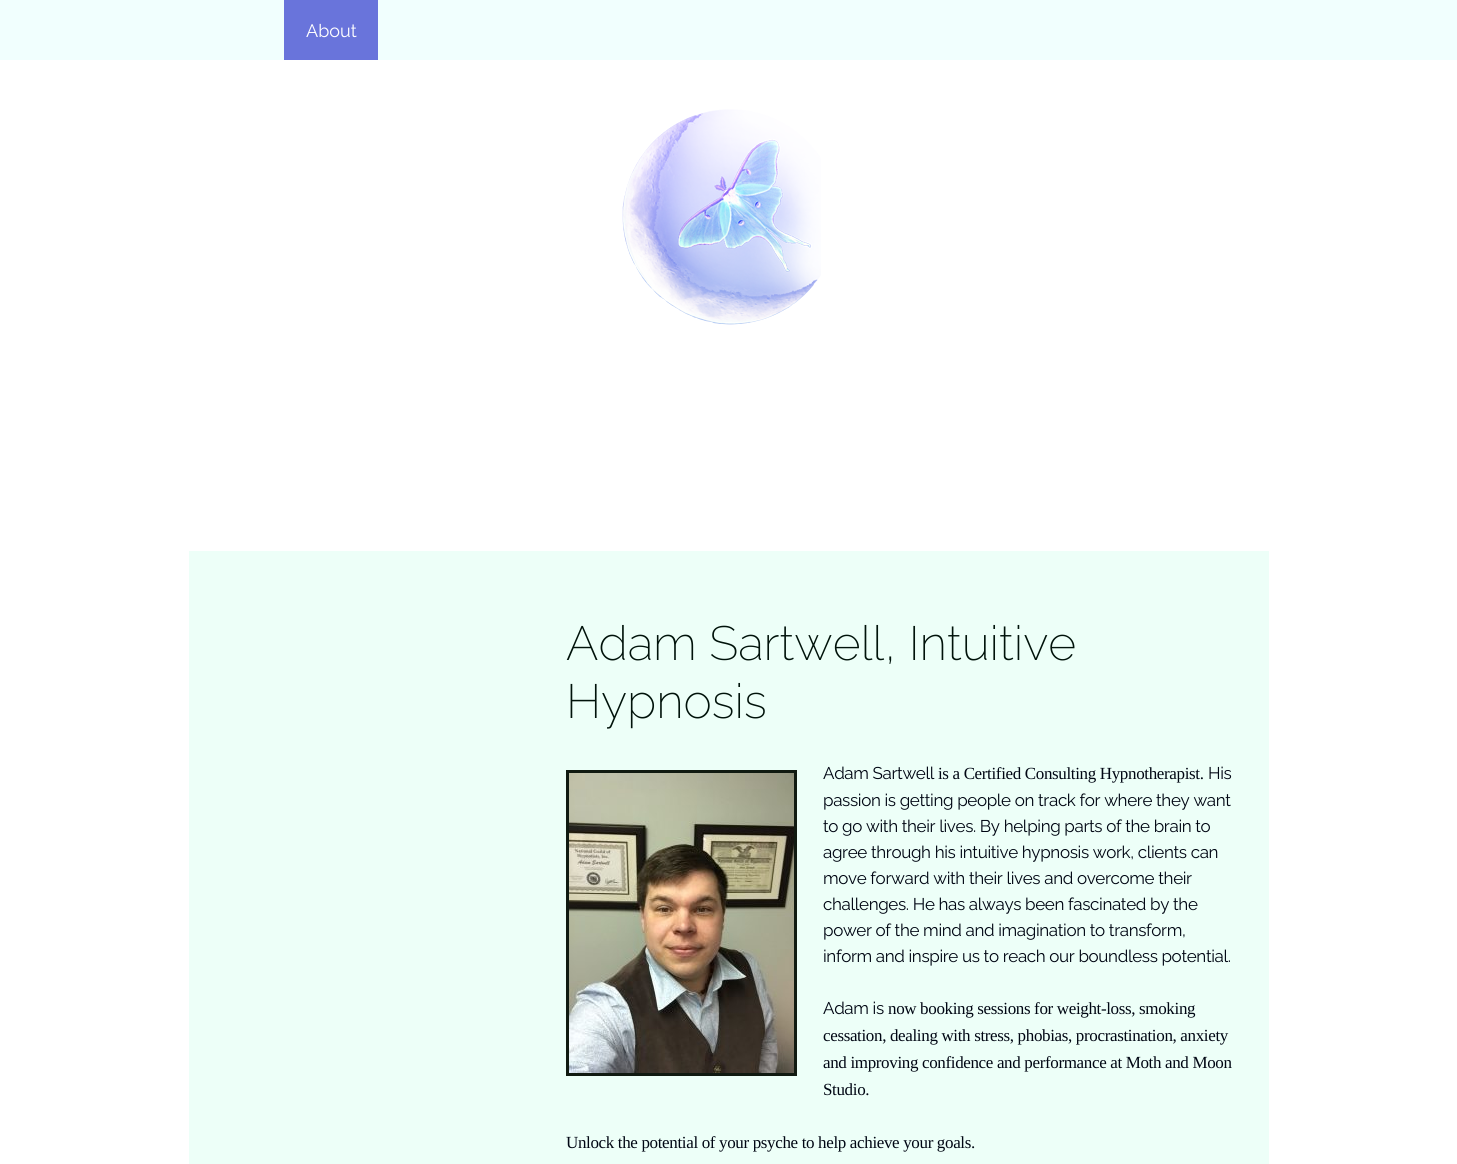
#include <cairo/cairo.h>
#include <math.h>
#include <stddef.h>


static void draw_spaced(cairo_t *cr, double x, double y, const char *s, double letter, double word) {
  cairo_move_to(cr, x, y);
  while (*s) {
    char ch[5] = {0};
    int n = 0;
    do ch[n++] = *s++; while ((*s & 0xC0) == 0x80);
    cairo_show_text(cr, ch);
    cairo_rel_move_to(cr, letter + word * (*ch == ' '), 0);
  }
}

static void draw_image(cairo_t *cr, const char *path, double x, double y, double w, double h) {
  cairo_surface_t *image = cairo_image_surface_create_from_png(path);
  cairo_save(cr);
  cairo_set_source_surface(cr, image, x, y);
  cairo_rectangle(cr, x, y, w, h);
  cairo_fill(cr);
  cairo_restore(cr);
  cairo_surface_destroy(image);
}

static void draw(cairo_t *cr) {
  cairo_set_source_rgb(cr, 1, 1, 1);
  cairo_paint(cr);
  cairo_set_source_rgb(cr, 241 / 255.0, 1, 254 / 255.0);
  cairo_rectangle(cr, 0, 0, 1457, 60);
  cairo_fill(cr);
  cairo_set_source_rgb(cr, 105 / 255.0, 116 / 255.0, 219 / 255.0);
  cairo_rectangle(cr, 284, 0, 94, 60);
  cairo_fill(cr);
  draw_image(cr, "images/1.png", 622, 109, 199, 216);
  cairo_set_source_rgb(cr, 237 / 255.0, 1, 248 / 255.0);
  cairo_rectangle(cr, 189, 551, 1080, 613);
  cairo_fill(cr);
  cairo_rectangle(cr, 567.5, 771.5, 228, 303);
  cairo_set_source_rgb(cr, 16 / 255.0, 26 / 255.0, 17 / 255.0);
  cairo_set_line_width(cr, 3);
  cairo_stroke(cr);
  draw_image(cr, "images/2.png", 569, 773, 225, 300);
  cairo_select_font_face(cr, "Raleway", CAIRO_FONT_SLANT_NORMAL, CAIRO_FONT_WEIGHT_NORMAL);
  cairo_set_font_size(cr, 18);
  cairo_set_source_rgb(cr, 1, 1, 1);
  cairo_move_to(cr, 306, 37);
  cairo_show_text(cr, "About");
  cairo_select_font_face(cr, "Raleway ExtraLight", CAIRO_FONT_SLANT_NORMAL, CAIRO_FONT_WEIGHT_NORMAL);
  cairo_set_font_size(cr, 48);
  cairo_set_source_rgb(cr, 0, 18 / 255.0, 10 / 255.0);
  cairo_move_to(cr, 566, 660);
  cairo_show_text(cr, "Adam Sartwell, Intuitive");
  cairo_move_to(cr, 566, 718);
  cairo_show_text(cr, "Hypnosis");
  cairo_select_font_face(cr, "Raleway", CAIRO_FONT_SLANT_NORMAL, CAIRO_FONT_WEIGHT_NORMAL);
  cairo_set_font_size(cr, 17);
  cairo_set_source_rgb(cr, 0, 6 / 255.0, 19 / 255.0);
  draw_spaced(cr, 823, 779, "Adam Sartwell", -0.35, 0);
  cairo_select_font_face(cr, "Liberation Serif", CAIRO_FONT_SLANT_NORMAL, CAIRO_FONT_WEIGHT_NORMAL);
  draw_spaced(cr, 938, 779, "is a Certified Consulting Hypnotherapist.", -0.35, 0);
  cairo_select_font_face(cr, "Raleway", CAIRO_FONT_SLANT_NORMAL, CAIRO_FONT_WEIGHT_NORMAL);
  draw_spaced(cr, 1208, 779, "His", -0.35, 0);
  draw_spaced(cr, 823, 806, "passion is getting people on track for where they want", -0.35, 0);
  draw_spaced(cr, 823, 832, "to go with their lives. By helping parts of the brain to", -0.35, 0);
  draw_spaced(cr, 823, 858, "agree through his intuitive hypnosis work, clients can", -0.35, 0);
  draw_spaced(cr, 823, 884, "move forward with their lives and overcome their", -0.35, 0);
  draw_spaced(cr, 823, 910, "challenges. He has always been fascinated by the", -0.35, 0);
  draw_spaced(cr, 823, 936, "power of the mind and imagination to transform,", -0.35, 0);
  draw_spaced(cr, 823, 962, "inform and inspire us to reach our boundless potential.", -0.35, 0);
  draw_spaced(cr, 823, 1014, "Adam is", -0.35, 0);
  cairo_select_font_face(cr, "Liberation Serif", CAIRO_FONT_SLANT_NORMAL, CAIRO_FONT_WEIGHT_NORMAL);
  draw_spaced(cr, 888, 1014, "now booking sessions for weight-loss, smoking", -0.35, 0);
  draw_spaced(cr, 823, 1041, "cessation, dealing with stress, phobias, procrastination, anxiety", -0.35, 0);
  draw_spaced(cr, 823, 1068, "and improving confidence and performance at Moth and Moon", -0.35, 0);
  draw_spaced(cr, 823, 1095, "Studio.", -0.35, 0);
  draw_spaced(cr, 566, 1148, "Unlock the potential of your psyche to help achieve your goals.", -0.35, 0);
}

int main(void) {
  cairo_surface_t *surface = cairo_image_surface_create(CAIRO_FORMAT_RGB24, 1457, 1164);
  cairo_t *cr = cairo_create(surface);
  cairo_font_options_t *options = cairo_font_options_create();
  cairo_font_options_set_hint_metrics(options, CAIRO_HINT_METRICS_OFF);
  cairo_font_options_set_hint_style(options, CAIRO_HINT_STYLE_NONE);
  cairo_set_font_options(cr, options);
  cairo_set_miter_limit(cr, 4);
  draw(cr);
  cairo_surface_write_to_png(surface, "out.png");
  cairo_font_options_destroy(options);
  cairo_destroy(cr);
  cairo_surface_destroy(surface);
  return 0;
}
